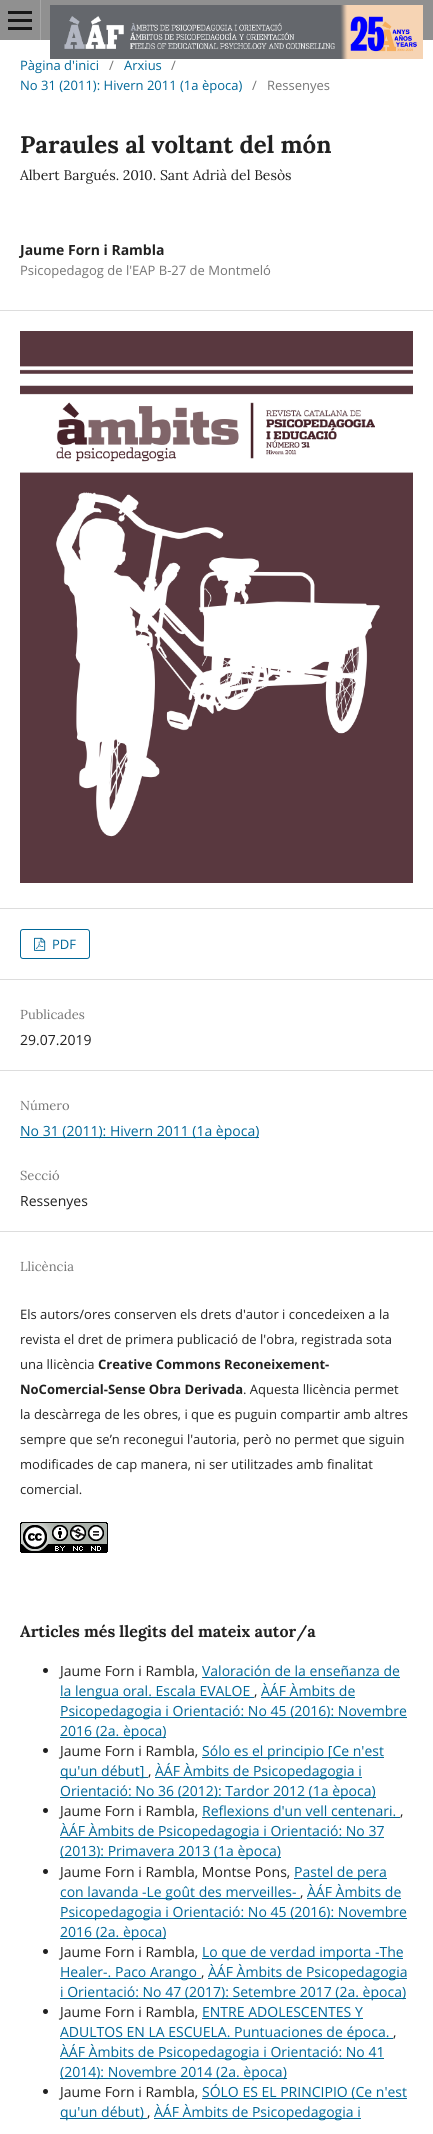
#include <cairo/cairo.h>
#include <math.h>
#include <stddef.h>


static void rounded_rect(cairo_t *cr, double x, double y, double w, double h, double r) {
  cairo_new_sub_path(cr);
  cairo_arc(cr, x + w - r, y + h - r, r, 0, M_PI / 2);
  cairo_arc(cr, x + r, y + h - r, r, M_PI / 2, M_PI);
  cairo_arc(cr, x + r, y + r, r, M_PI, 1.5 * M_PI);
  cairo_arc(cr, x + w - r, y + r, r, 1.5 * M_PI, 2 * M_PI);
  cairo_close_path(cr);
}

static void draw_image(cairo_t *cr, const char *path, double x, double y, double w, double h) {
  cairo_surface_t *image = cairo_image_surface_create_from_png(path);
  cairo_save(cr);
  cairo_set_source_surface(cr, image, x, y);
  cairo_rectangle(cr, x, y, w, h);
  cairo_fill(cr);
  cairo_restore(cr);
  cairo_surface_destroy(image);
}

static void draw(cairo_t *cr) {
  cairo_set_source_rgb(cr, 1, 1, 1);
  cairo_paint(cr);
  cairo_set_source_rgb(cr, 144 / 255.0, 144 / 255.0, 144 / 255.0);
  cairo_rectangle(cr, 0, 0, 433, 40);
  cairo_fill(cr);
  cairo_set_source_rgb(cr, 166 / 255.0, 166 / 255.0, 166 / 255.0);
  cairo_rectangle(cr, 40, 0, 1, 40);
  cairo_fill(cr);
  cairo_set_source_rgb(cr, 23 / 255.0, 23 / 255.0, 23 / 255.0);
  cairo_rectangle(cr, 8, 27, 24, 3);
  cairo_fill(cr);
  cairo_rectangle(cr, 8, 11, 24, 3);
  cairo_fill(cr);
  cairo_rectangle(cr, 8, 19, 24, 3);
  cairo_fill(cr);
  draw_image(cr, "images/1.png", 50, 5, 373, 54);
  cairo_set_source_rgb(cr, 221 / 255.0, 221 / 255.0, 221 / 255.0);
  cairo_rectangle(cr, 0, 310, 433, 1);
  cairo_fill(cr);
  cairo_rectangle(cr, 0, 908, 433, 1);
  cairo_fill(cr);
  draw_image(cr, "images/2.png", 20, 331, 393, 552);
  cairo_rectangle(cr, 0, 979, 433, 1);
  cairo_fill(cr);
  rounded_rect(cr, 20.5, 929.5, 69, 29, 2.5);
  cairo_set_source_rgb(cr, 0, 103 / 255.0, 152 / 255.0);
  cairo_set_line_width(cr, 1);
  cairo_stroke(cr);
  draw_image(cr, "images/3.png", 34, 937, 12, 14);
  cairo_set_source_rgb(cr, 221 / 255.0, 221 / 255.0, 221 / 255.0);
  cairo_rectangle(cr, 0, 1070, 433, 1);
  cairo_fill(cr);
  cairo_rectangle(cr, 0, 1231, 433, 1);
  cairo_fill(cr);
  cairo_set_source_rgb(cr, 0, 103 / 255.0, 152 / 255.0);
  cairo_rectangle(cr, 20, 1137, 239, 1);
  cairo_fill(cr);
  draw_image(cr, "images/4.png", 20, 1522, 88, 31);
  cairo_set_source_rgb(cr, 33 / 255.0, 33 / 255.0, 33 / 255.0);
  cairo_arc(cr, 45.5, 1670.5, 2.5, 0, 2 * M_PI);
  cairo_fill(cr);
  cairo_set_source_rgb(cr, 0, 103 / 255.0, 152 / 255.0);
  cairo_rectangle(cr, 202, 1677, 198, 1);
  cairo_fill(cr);
  cairo_rectangle(cr, 60, 1697, 194, 1);
  cairo_fill(cr);
  cairo_rectangle(cr, 261, 1697, 94, 1);
  cairo_fill(cr);
  cairo_rectangle(cr, 60, 1717, 347, 1);
  cairo_fill(cr);
  cairo_rectangle(cr, 60, 1737, 106, 1);
  cairo_fill(cr);
  cairo_set_source_rgb(cr, 33 / 255.0, 33 / 255.0, 33 / 255.0);
  cairo_arc(cr, 45.5, 1750.5, 2.5, 0, 2 * M_PI);
  cairo_fill(cr);
  cairo_set_source_rgb(cr, 0, 103 / 255.0, 152 / 255.0);
  cairo_rectangle(cr, 202, 1757, 182, 1);
  cairo_fill(cr);
  cairo_rectangle(cr, 60, 1777, 88, 1);
  cairo_fill(cr);
  cairo_rectangle(cr, 155, 1777, 207, 1);
  cairo_fill(cr);
  cairo_rectangle(cr, 60, 1797, 316, 1);
  cairo_fill(cr);
  cairo_set_source_rgb(cr, 33 / 255.0, 33 / 255.0, 33 / 255.0);
  cairo_arc(cr, 45.5, 1810.5, 2.5, 0, 2 * M_PI);
  cairo_fill(cr);
  cairo_set_source_rgb(cr, 0, 103 / 255.0, 152 / 255.0);
  cairo_rectangle(cr, 202, 1817, 198, 1);
  cairo_fill(cr);
  cairo_rectangle(cr, 60, 1837, 324, 1);
  cairo_fill(cr);
  cairo_rectangle(cr, 60, 1857, 221, 1);
  cairo_fill(cr);
  cairo_set_source_rgb(cr, 33 / 255.0, 33 / 255.0, 33 / 255.0);
  cairo_arc(cr, 45.5, 1871.5, 2.5, 0, 2 * M_PI);
  cairo_fill(cr);
  cairo_set_source_rgb(cr, 0, 103 / 255.0, 152 / 255.0);
  cairo_rectangle(cr, 294, 1878, 93, 1);
  cairo_fill(cr);
  cairo_rectangle(cr, 60, 1898, 240, 1);
  cairo_fill(cr);
  cairo_rectangle(cr, 307, 1898, 94, 1);
  cairo_fill(cr);
  cairo_rectangle(cr, 60, 1918, 347, 1);
  cairo_fill(cr);
  cairo_rectangle(cr, 60, 1938, 106, 1);
  cairo_fill(cr);
  cairo_set_source_rgb(cr, 33 / 255.0, 33 / 255.0, 33 / 255.0);
  cairo_arc(cr, 45.5, 1951.5, 2.5, 0, 2 * M_PI);
  cairo_fill(cr);
  cairo_set_source_rgb(cr, 0, 103 / 255.0, 152 / 255.0);
  cairo_rectangle(cr, 202, 1958, 201, 1);
  cairo_fill(cr);
  cairo_rectangle(cr, 60, 1978, 141, 1);
  cairo_fill(cr);
  cairo_rectangle(cr, 208, 1978, 199, 1);
  cairo_fill(cr);
  cairo_rectangle(cr, 60, 1998, 346, 1);
  cairo_fill(cr);
  cairo_set_source_rgb(cr, 33 / 255.0, 33 / 255.0, 33 / 255.0);
  cairo_arc(cr, 45.5, 2011.5, 2.5, 0, 2 * M_PI);
  cairo_fill(cr);
  cairo_set_source_rgb(cr, 0, 103 / 255.0, 152 / 255.0);
  cairo_rectangle(cr, 202, 2018, 161, 1);
  cairo_fill(cr);
  cairo_rectangle(cr, 60, 2038, 333, 1);
  cairo_fill(cr);
  cairo_rectangle(cr, 60, 2058, 324, 1);
  cairo_fill(cr);
  cairo_rectangle(cr, 60, 2078, 227, 1);
  cairo_fill(cr);
  cairo_set_source_rgb(cr, 33 / 255.0, 33 / 255.0, 33 / 255.0);
  cairo_arc(cr, 45.5, 2091.5, 2.5, 0, 2 * M_PI);
  cairo_fill(cr);
  cairo_set_source_rgb(cr, 0, 103 / 255.0, 152 / 255.0);
  cairo_rectangle(cr, 202, 2098, 205, 1);
  cairo_fill(cr);
  cairo_rectangle(cr, 60, 2118, 87, 1);
  cairo_fill(cr);
  cairo_rectangle(cr, 154, 2118, 207, 1);
  cairo_fill(cr);
  cairo_select_font_face(cr, "Open Sans", CAIRO_FONT_SLANT_NORMAL, CAIRO_FONT_WEIGHT_NORMAL);
  cairo_set_font_size(cr, 13);
  cairo_move_to(cr, 20, 70);
  cairo_show_text(cr, "Pàgina d'inici");
  cairo_set_source_rgb(cr, 117 / 255.0, 117 / 255.0, 117 / 255.0);
  cairo_move_to(cr, 109, 70);
  cairo_show_text(cr, "/");
  cairo_set_source_rgb(cr, 0, 103 / 255.0, 152 / 255.0);
  cairo_move_to(cr, 124, 70);
  cairo_show_text(cr, "Arxius");
  cairo_set_source_rgb(cr, 117 / 255.0, 117 / 255.0, 117 / 255.0);
  cairo_move_to(cr, 171, 70);
  cairo_show_text(cr, "/");
  cairo_set_source_rgb(cr, 0, 103 / 255.0, 152 / 255.0);
  cairo_move_to(cr, 20, 90);
  cairo_show_text(cr, "No 31 (2011): Hivern 2011 (1a època)");
  cairo_set_source_rgb(cr, 117 / 255.0, 117 / 255.0, 117 / 255.0);
  cairo_move_to(cr, 252, 90);
  cairo_show_text(cr, "/");
  cairo_move_to(cr, 267, 90);
  cairo_show_text(cr, "Ressenyes");
  cairo_select_font_face(cr, "Lora", CAIRO_FONT_SLANT_NORMAL, CAIRO_FONT_WEIGHT_BOLD);
  cairo_set_font_size(cr, 24);
  cairo_set_source_rgb(cr, 33 / 255.0, 33 / 255.0, 33 / 255.0);
  cairo_move_to(cr, 20, 153);
  cairo_show_text(cr, "Paraules al voltant del món");
  cairo_select_font_face(cr, "Lora", CAIRO_FONT_SLANT_NORMAL, CAIRO_FONT_WEIGHT_NORMAL);
  cairo_set_font_size(cr, 14);
  cairo_move_to(cr, 20, 180);
  cairo_show_text(cr, "Albert Bargués. 2010. Sant Adrià del Besòs");
  cairo_select_font_face(cr, "Open Sans", CAIRO_FONT_SLANT_NORMAL, CAIRO_FONT_WEIGHT_BOLD);
  cairo_move_to(cr, 20, 255);
  cairo_show_text(cr, "Jaume Forn i Rambla");
  cairo_select_font_face(cr, "Open Sans", CAIRO_FONT_SLANT_NORMAL, CAIRO_FONT_WEIGHT_NORMAL);
  cairo_set_font_size(cr, 13);
  cairo_set_source_rgb(cr, 117 / 255.0, 117 / 255.0, 117 / 255.0);
  cairo_move_to(cr, 20, 275);
  cairo_show_text(cr, "Psicopedagog de l'EAP B-27 de Montmeló");
  cairo_set_source_rgb(cr, 0, 103 / 255.0, 152 / 255.0);
  cairo_move_to(cr, 52, 949);
  cairo_show_text(cr, "PDF");
  cairo_select_font_face(cr, "Lora", CAIRO_FONT_SLANT_NORMAL, CAIRO_FONT_WEIGHT_NORMAL);
  cairo_set_source_rgb(cr, 117 / 255.0, 117 / 255.0, 117 / 255.0);
  cairo_move_to(cr, 20, 1019);
  cairo_show_text(cr, "Publicades");
  cairo_select_font_face(cr, "Open Sans", CAIRO_FONT_SLANT_NORMAL, CAIRO_FONT_WEIGHT_NORMAL);
  cairo_set_font_size(cr, 14);
  cairo_set_source_rgb(cr, 33 / 255.0, 33 / 255.0, 33 / 255.0);
  cairo_move_to(cr, 20, 1045);
  cairo_show_text(cr, "29.07.2019");
  cairo_select_font_face(cr, "Lora", CAIRO_FONT_SLANT_NORMAL, CAIRO_FONT_WEIGHT_NORMAL);
  cairo_set_font_size(cr, 13);
  cairo_set_source_rgb(cr, 117 / 255.0, 117 / 255.0, 117 / 255.0);
  cairo_move_to(cr, 20, 1110);
  cairo_show_text(cr, "Número");
  cairo_select_font_face(cr, "Open Sans", CAIRO_FONT_SLANT_NORMAL, CAIRO_FONT_WEIGHT_NORMAL);
  cairo_set_font_size(cr, 14);
  cairo_set_source_rgb(cr, 0, 103 / 255.0, 152 / 255.0);
  cairo_move_to(cr, 20, 1136);
  cairo_show_text(cr, "No 31 (2011): Hivern 2011 (1a època)");
  cairo_select_font_face(cr, "Lora", CAIRO_FONT_SLANT_NORMAL, CAIRO_FONT_WEIGHT_NORMAL);
  cairo_set_font_size(cr, 13);
  cairo_set_source_rgb(cr, 117 / 255.0, 117 / 255.0, 117 / 255.0);
  cairo_move_to(cr, 20, 1180);
  cairo_show_text(cr, "Secció");
  cairo_select_font_face(cr, "Open Sans", CAIRO_FONT_SLANT_NORMAL, CAIRO_FONT_WEIGHT_NORMAL);
  cairo_set_font_size(cr, 14);
  cairo_set_source_rgb(cr, 33 / 255.0, 33 / 255.0, 33 / 255.0);
  cairo_move_to(cr, 20, 1206);
  cairo_show_text(cr, "Ressenyes");
  cairo_select_font_face(cr, "Lora", CAIRO_FONT_SLANT_NORMAL, CAIRO_FONT_WEIGHT_NORMAL);
  cairo_set_font_size(cr, 13);
  cairo_set_source_rgb(cr, 117 / 255.0, 117 / 255.0, 117 / 255.0);
  cairo_move_to(cr, 20, 1271);
  cairo_show_text(cr, "Llicència");
  cairo_select_font_face(cr, "Open Sans", CAIRO_FONT_SLANT_NORMAL, CAIRO_FONT_WEIGHT_NORMAL);
  cairo_set_source_rgb(cr, 33 / 255.0, 33 / 255.0, 33 / 255.0);
  cairo_move_to(cr, 20, 1319);
  cairo_show_text(cr, "Els autors/ores conserven els drets d'autor i concedeixen a la");
  cairo_move_to(cr, 20, 1344);
  cairo_show_text(cr, "revista el dret de primera publicació de l'obra, registrada sota");
  cairo_move_to(cr, 20, 1369);
  cairo_show_text(cr, "una llicència");
  cairo_select_font_face(cr, "Open Sans", CAIRO_FONT_SLANT_NORMAL, CAIRO_FONT_WEIGHT_BOLD);
  cairo_move_to(cr, 98, 1369);
  cairo_show_text(cr, "Creative Commons Reconeixement-");
  cairo_move_to(cr, 20, 1394);
  cairo_show_text(cr, "NoComercial-Sense Obra Derivada");
  cairo_select_font_face(cr, "Open Sans", CAIRO_FONT_SLANT_NORMAL, CAIRO_FONT_WEIGHT_NORMAL);
  cairo_move_to(cr, 243, 1394);
  cairo_show_text(cr, ". Aquesta llicència permet");
  cairo_move_to(cr, 20, 1419);
  cairo_show_text(cr, "la descàrrega de les obres, i que es puguin compartir amb altres");
  cairo_move_to(cr, 20, 1444);
  cairo_show_text(cr, "sempre que se’n reconegui l'autoria, però no permet que siguin");
  cairo_move_to(cr, 20, 1469);
  cairo_show_text(cr, "modificades de cap manera, ni ser utilitzades amb finalitat");
  cairo_move_to(cr, 20, 1494);
  cairo_show_text(cr, "comercial.");
  cairo_select_font_face(cr, "Lora", CAIRO_FONT_SLANT_NORMAL, CAIRO_FONT_WEIGHT_BOLD);
  cairo_set_font_size(cr, 16);
  cairo_move_to(cr, 20, 1637);
  cairo_show_text(cr, "Articles més llegits del mateix autor/a");
  cairo_select_font_face(cr, "Open Sans", CAIRO_FONT_SLANT_NORMAL, CAIRO_FONT_WEIGHT_NORMAL);
  cairo_set_font_size(cr, 14);
  cairo_move_to(cr, 60, 1676);
  cairo_show_text(cr, "Jaume Forn i Rambla,");
  cairo_set_source_rgb(cr, 0, 103 / 255.0, 152 / 255.0);
  cairo_move_to(cr, 202, 1676);
  cairo_show_text(cr, "Valoración de la enseñanza de");
  cairo_move_to(cr, 60, 1696);
  cairo_show_text(cr, "la lengua oral. Escala EVALOE");
  cairo_set_source_rgb(cr, 33 / 255.0, 33 / 255.0, 33 / 255.0);
  cairo_move_to(cr, 254, 1696);
  cairo_show_text(cr, ",");
  cairo_set_source_rgb(cr, 0, 103 / 255.0, 152 / 255.0);
  cairo_move_to(cr, 261, 1696);
  cairo_show_text(cr, "ÀÁF Àmbits de");
  cairo_move_to(cr, 60, 1716);
  cairo_show_text(cr, "Psicopedagogia i Orientació: No 45 (2016): Novembre");
  cairo_move_to(cr, 60, 1736);
  cairo_show_text(cr, "2016 (2a. època)");
  cairo_set_source_rgb(cr, 33 / 255.0, 33 / 255.0, 33 / 255.0);
  cairo_move_to(cr, 60, 1756);
  cairo_show_text(cr, "Jaume Forn i Rambla,");
  cairo_set_source_rgb(cr, 0, 103 / 255.0, 152 / 255.0);
  cairo_move_to(cr, 202, 1756);
  cairo_show_text(cr, "Sólo es el principio [Ce n'est");
  cairo_move_to(cr, 60, 1776);
  cairo_show_text(cr, "qu'un début]");
  cairo_set_source_rgb(cr, 33 / 255.0, 33 / 255.0, 33 / 255.0);
  cairo_move_to(cr, 148, 1776);
  cairo_show_text(cr, ",");
  cairo_set_source_rgb(cr, 0, 103 / 255.0, 152 / 255.0);
  cairo_move_to(cr, 155, 1776);
  cairo_show_text(cr, "ÀÁF Àmbits de Psicopedagogia i");
  cairo_move_to(cr, 60, 1796);
  cairo_show_text(cr, "Orientació: No 36 (2012): Tardor 2012 (1a època)");
  cairo_set_source_rgb(cr, 33 / 255.0, 33 / 255.0, 33 / 255.0);
  cairo_move_to(cr, 60, 1816);
  cairo_show_text(cr, "Jaume Forn i Rambla,");
  cairo_set_source_rgb(cr, 0, 103 / 255.0, 152 / 255.0);
  cairo_move_to(cr, 202, 1816);
  cairo_show_text(cr, "Reflexions d'un vell centenari.");
  cairo_set_source_rgb(cr, 33 / 255.0, 33 / 255.0, 33 / 255.0);
  cairo_move_to(cr, 400, 1816);
  cairo_show_text(cr, ",");
  cairo_set_source_rgb(cr, 0, 103 / 255.0, 152 / 255.0);
  cairo_move_to(cr, 60, 1836);
  cairo_show_text(cr, "ÀÁF Àmbits de Psicopedagogia i Orientació: No 37");
  cairo_move_to(cr, 60, 1856);
  cairo_show_text(cr, "(2013): Primavera 2013 (1a època)");
  cairo_set_source_rgb(cr, 33 / 255.0, 33 / 255.0, 33 / 255.0);
  cairo_move_to(cr, 60, 1877);
  cairo_show_text(cr, "Jaume Forn i Rambla, Montse Pons,");
  cairo_set_source_rgb(cr, 0, 103 / 255.0, 152 / 255.0);
  cairo_move_to(cr, 294, 1877);
  cairo_show_text(cr, "Pastel de pera");
  cairo_move_to(cr, 60, 1897);
  cairo_show_text(cr, "con lavanda -Le goût des merveilles-");
  cairo_set_source_rgb(cr, 33 / 255.0, 33 / 255.0, 33 / 255.0);
  cairo_move_to(cr, 300, 1897);
  cairo_show_text(cr, ",");
  cairo_set_source_rgb(cr, 0, 103 / 255.0, 152 / 255.0);
  cairo_move_to(cr, 307, 1897);
  cairo_show_text(cr, "ÀÁF Àmbits de");
  cairo_move_to(cr, 60, 1917);
  cairo_show_text(cr, "Psicopedagogia i Orientació: No 45 (2016): Novembre");
  cairo_move_to(cr, 60, 1937);
  cairo_show_text(cr, "2016 (2a. època)");
  cairo_set_source_rgb(cr, 33 / 255.0, 33 / 255.0, 33 / 255.0);
  cairo_move_to(cr, 60, 1957);
  cairo_show_text(cr, "Jaume Forn i Rambla,");
  cairo_set_source_rgb(cr, 0, 103 / 255.0, 152 / 255.0);
  cairo_move_to(cr, 202, 1957);
  cairo_show_text(cr, "Lo que de verdad importa -The");
  cairo_move_to(cr, 60, 1977);
  cairo_show_text(cr, "Healer-. Paco Arango");
  cairo_set_source_rgb(cr, 33 / 255.0, 33 / 255.0, 33 / 255.0);
  cairo_move_to(cr, 201, 1977);
  cairo_show_text(cr, ",");
  cairo_set_source_rgb(cr, 0, 103 / 255.0, 152 / 255.0);
  cairo_move_to(cr, 208, 1977);
  cairo_show_text(cr, "ÀÁF Àmbits de Psicopedagogia");
  cairo_move_to(cr, 60, 1997);
  cairo_show_text(cr, "i Orientació: No 47 (2017): Setembre 2017 (2a. època)");
  cairo_set_source_rgb(cr, 33 / 255.0, 33 / 255.0, 33 / 255.0);
  cairo_move_to(cr, 60, 2017);
  cairo_show_text(cr, "Jaume Forn i Rambla,");
  cairo_set_source_rgb(cr, 0, 103 / 255.0, 152 / 255.0);
  cairo_move_to(cr, 202, 2017);
  cairo_show_text(cr, "ENTRE ADOLESCENTES Y");
  cairo_move_to(cr, 60, 2037);
  cairo_show_text(cr, "ADULTOS EN LA ESCUELA. Puntuaciones de época.");
  cairo_set_source_rgb(cr, 33 / 255.0, 33 / 255.0, 33 / 255.0);
  cairo_move_to(cr, 393, 2037);
  cairo_show_text(cr, ",");
  cairo_set_source_rgb(cr, 0, 103 / 255.0, 152 / 255.0);
  cairo_move_to(cr, 60, 2057);
  cairo_show_text(cr, "ÀÁF Àmbits de Psicopedagogia i Orientació: No 41");
  cairo_move_to(cr, 60, 2077);
  cairo_show_text(cr, "(2014): Novembre 2014 (2a. època)");
  cairo_set_source_rgb(cr, 33 / 255.0, 33 / 255.0, 33 / 255.0);
  cairo_move_to(cr, 60, 2097);
  cairo_show_text(cr, "Jaume Forn i Rambla,");
  cairo_set_source_rgb(cr, 0, 103 / 255.0, 152 / 255.0);
  cairo_move_to(cr, 202, 2097);
  cairo_show_text(cr, "SÓLO ES EL PRINCIPIO (Ce n'est");
  cairo_move_to(cr, 60, 2117);
  cairo_show_text(cr, "qu'un début)");
  cairo_set_source_rgb(cr, 33 / 255.0, 33 / 255.0, 33 / 255.0);
  cairo_move_to(cr, 147, 2117);
  cairo_show_text(cr, ",");
  cairo_set_source_rgb(cr, 0, 103 / 255.0, 152 / 255.0);
  cairo_move_to(cr, 154, 2117);
  cairo_show_text(cr, "ÀÁF Àmbits de Psicopedagogia i");
}

int main(void) {
  cairo_surface_t *surface = cairo_image_surface_create(CAIRO_FORMAT_RGB24, 433, 2134);
  cairo_t *cr = cairo_create(surface);
  cairo_font_options_t *options = cairo_font_options_create();
  cairo_font_options_set_hint_metrics(options, CAIRO_HINT_METRICS_OFF);
  cairo_font_options_set_hint_style(options, CAIRO_HINT_STYLE_NONE);
  cairo_set_font_options(cr, options);
  cairo_set_miter_limit(cr, 4);
  draw(cr);
  cairo_surface_write_to_png(surface, "out.png");
  cairo_font_options_destroy(options);
  cairo_destroy(cr);
  cairo_surface_destroy(surface);
  return 0;
}
